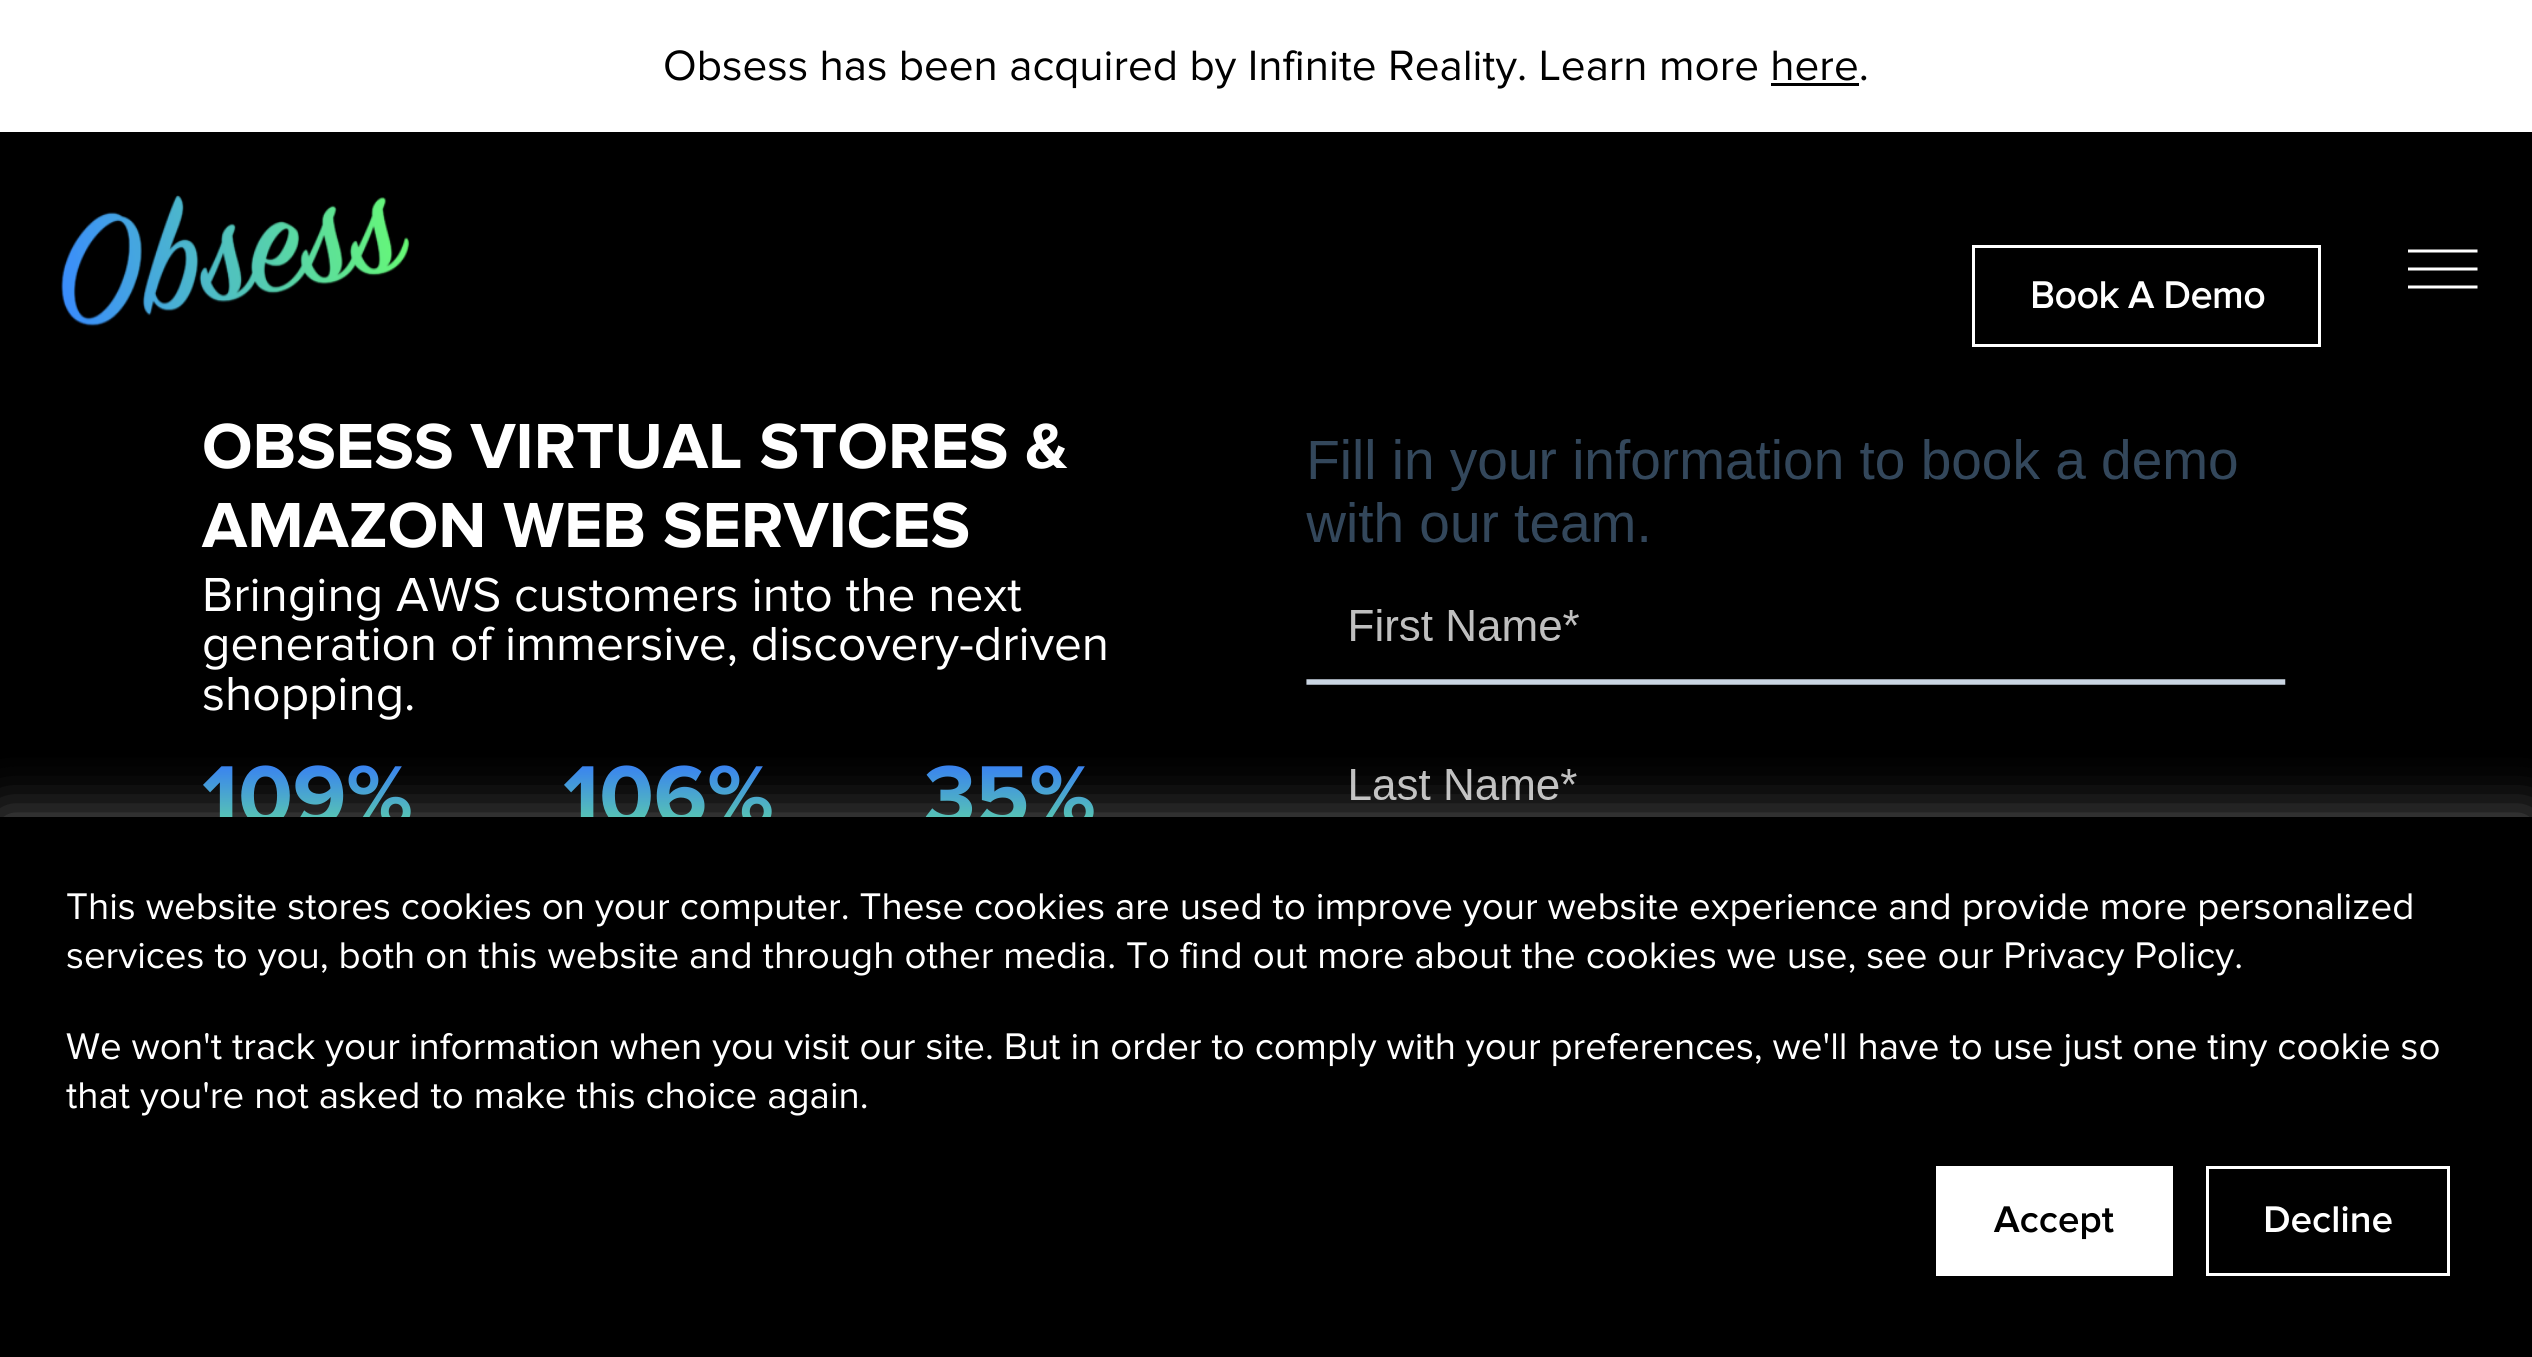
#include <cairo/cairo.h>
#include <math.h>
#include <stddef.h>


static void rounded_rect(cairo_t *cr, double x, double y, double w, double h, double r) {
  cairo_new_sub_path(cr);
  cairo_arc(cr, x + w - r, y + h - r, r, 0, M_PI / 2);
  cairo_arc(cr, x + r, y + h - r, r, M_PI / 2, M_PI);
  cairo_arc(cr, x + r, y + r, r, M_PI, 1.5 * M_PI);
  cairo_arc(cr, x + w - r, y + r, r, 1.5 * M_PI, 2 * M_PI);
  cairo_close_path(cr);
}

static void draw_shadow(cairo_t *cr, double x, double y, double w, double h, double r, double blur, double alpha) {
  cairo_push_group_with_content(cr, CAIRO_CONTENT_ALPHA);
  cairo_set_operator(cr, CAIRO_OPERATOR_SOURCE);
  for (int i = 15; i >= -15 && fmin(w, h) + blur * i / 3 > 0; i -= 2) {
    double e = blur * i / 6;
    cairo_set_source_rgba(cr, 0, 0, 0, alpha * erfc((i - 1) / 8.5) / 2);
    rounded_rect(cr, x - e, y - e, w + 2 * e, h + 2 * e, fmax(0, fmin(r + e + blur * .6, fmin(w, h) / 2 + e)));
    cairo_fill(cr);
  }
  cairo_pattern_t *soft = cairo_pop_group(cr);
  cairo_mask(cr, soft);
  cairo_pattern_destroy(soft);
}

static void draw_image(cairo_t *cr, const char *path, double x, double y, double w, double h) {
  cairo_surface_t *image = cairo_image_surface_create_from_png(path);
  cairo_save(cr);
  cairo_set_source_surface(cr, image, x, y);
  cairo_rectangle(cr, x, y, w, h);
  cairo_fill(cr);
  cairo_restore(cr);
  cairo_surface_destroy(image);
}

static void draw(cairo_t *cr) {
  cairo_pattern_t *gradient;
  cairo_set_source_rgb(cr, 0, 0, 0);
  cairo_paint(cr);
  cairo_set_source_rgb(cr, 1, 1, 1);
  cairo_rectangle(cr, 0, 0, 2532, 132);
  cairo_fill(cr);
  cairo_set_source_rgb(cr, 0, 0, 0);
  cairo_rectangle(cr, 1771, 83, 88, 3);
  cairo_fill(cr);
  draw_image(cr, "images/1.png", 61, 195, 349, 132);
  cairo_new_path(cr);
  cairo_move_to(cr, 2408, 287);
  cairo_line_to(cr, 2477.5, 287);
  cairo_move_to(cr, 2408, 269);
  cairo_line_to(cr, 2477.5, 269);
  cairo_move_to(cr, 2408, 251);
  cairo_line_to(cr, 2477.5, 251);
  cairo_set_source_rgb(cr, 1, 1, 1);
  cairo_set_line_width(cr, 3);
  cairo_stroke(cr);
  cairo_rectangle(cr, 1973.5, 246.5, 346, 99);
  cairo_stroke(cr);
  draw_image(cr, "images/2.png", 1306, 439, 980, 361);
  cairo_set_source_rgb(cr, 1, 1, 1);
  draw_shadow(cr, 0, 817, 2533, 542, 0, 27.5, 0.38);
  cairo_select_font_face(cr, "Proxima Nova", CAIRO_FONT_SLANT_NORMAL, CAIRO_FONT_WEIGHT_NORMAL);
  cairo_set_font_size(cr, 44);
  cairo_set_source_rgb(cr, 0, 0, 0);
  cairo_move_to(cr, 663, 80);
  cairo_show_text(cr, "Obsess has been acquired by Infinite Reality. Learn more here.");
  cairo_select_font_face(cr, "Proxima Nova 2", CAIRO_FONT_SLANT_NORMAL, CAIRO_FONT_WEIGHT_BOLD);
  cairo_set_font_size(cr, 38.5);
  cairo_set_source_rgb(cr, 1, 1, 1);
  cairo_move_to(cr, 2030, 308);
  cairo_show_text(cr, "Book A Demo");
  cairo_select_font_face(cr, "Proxima Nova", CAIRO_FONT_SLANT_NORMAL, CAIRO_FONT_WEIGHT_BOLD);
  cairo_set_font_size(cr, 66);
  cairo_move_to(cr, 202, 468);
  cairo_show_text(cr, "OBSESS VIRTUAL STORES &");
  cairo_move_to(cr, 202, 547);
  cairo_show_text(cr, "AMAZON WEB SERVICES");
  cairo_select_font_face(cr, "Proxima Nova", CAIRO_FONT_SLANT_NORMAL, CAIRO_FONT_WEIGHT_NORMAL);
  cairo_set_font_size(cr, 49.5);
  cairo_move_to(cr, 202, 611);
  cairo_show_text(cr, "Bringing AWS customers into the next");
  cairo_move_to(cr, 202, 660);
  cairo_show_text(cr, "generation of immersive, discovery-driven");
  cairo_move_to(cr, 202, 710);
  cairo_show_text(cr, "shopping.");
  cairo_select_font_face(cr, "Proxima Nova", CAIRO_FONT_SLANT_NORMAL, CAIRO_FONT_WEIGHT_BOLD);
  cairo_set_font_size(cr, 88);
  gradient = cairo_pattern_create_linear(363, 756, 363, 844);
  cairo_pattern_add_color_stop_rgba(gradient, 0, 52 / 255.0, 119 / 255.0, 251 / 255.0, 1);
  cairo_pattern_add_color_stop_rgba(gradient, 1, 101 / 255.0, 226 / 255.0, 151 / 255.0, 1);
  cairo_set_source(cr, gradient);
  cairo_pattern_destroy(gradient);
  cairo_move_to(cr, 202, 825);
  cairo_show_text(cr, "109%");
  gradient = cairo_pattern_create_linear(724, 756, 724, 844);
  cairo_pattern_add_color_stop_rgba(gradient, 0, 52 / 255.0, 119 / 255.0, 251 / 255.0, 1);
  cairo_pattern_add_color_stop_rgba(gradient, 1, 101 / 255.0, 226 / 255.0, 151 / 255.0, 1);
  cairo_set_source(cr, gradient);
  cairo_pattern_destroy(gradient);
  cairo_move_to(cr, 563, 825);
  cairo_show_text(cr, "106%");
  gradient = cairo_pattern_create_linear(1085, 756, 1085, 844);
  cairo_pattern_add_color_stop_rgba(gradient, 0, 52 / 255.0, 119 / 255.0, 251 / 255.0, 1);
  cairo_pattern_add_color_stop_rgba(gradient, 1, 101 / 255.0, 226 / 255.0, 151 / 255.0, 1);
  cairo_set_source(cr, gradient);
  cairo_pattern_destroy(gradient);
  cairo_move_to(cr, 924, 825);
  cairo_show_text(cr, "35%");
  cairo_set_source_rgb(cr, 0, 0, 0);
  cairo_rectangle(cr, 0, 817, 2532, 540);
  cairo_fill(cr);
  cairo_select_font_face(cr, "Proxima Nova", CAIRO_FONT_SLANT_NORMAL, CAIRO_FONT_WEIGHT_NORMAL);
  cairo_set_font_size(cr, 38.5);
  cairo_set_source_rgb(cr, 1, 1, 1);
  cairo_move_to(cr, 66, 919);
  cairo_show_text(cr, "This website stores cookies on your computer. These cookies are used to improve your website experience and provide more personalized");
  cairo_move_to(cr, 66, 968);
  cairo_show_text(cr, "services to you, both on this website and through other media. To find out more about the cookies we use, see our Privacy Policy.");
  cairo_move_to(cr, 66, 1059);
  cairo_show_text(cr, "We won't track your information when you visit our site. But in order to comply with your preferences, we'll have to use just one tiny cookie so");
  cairo_move_to(cr, 66, 1108);
  cairo_show_text(cr, "that you're not asked to make this choice again.");
  cairo_rectangle(cr, 1936, 1166, 237, 110);
  cairo_fill(cr);
  draw_image(cr, "images/3.png", 1993, 1206, 121, 34);
  cairo_rectangle(cr, 2207.5, 1167.5, 241, 107);
  cairo_stroke(cr);
  draw_image(cr, "images/4.png", 2265, 1206, 127, 27);
}

int main(void) {
  cairo_surface_t *surface = cairo_image_surface_create(CAIRO_FORMAT_RGB24, 2532, 1357);
  cairo_t *cr = cairo_create(surface);
  cairo_font_options_t *options = cairo_font_options_create();
  cairo_font_options_set_hint_metrics(options, CAIRO_HINT_METRICS_OFF);
  cairo_font_options_set_hint_style(options, CAIRO_HINT_STYLE_NONE);
  cairo_set_font_options(cr, options);
  cairo_set_miter_limit(cr, 4);
  draw(cr);
  cairo_surface_write_to_png(surface, "out.png");
  cairo_font_options_destroy(options);
  cairo_destroy(cr);
  cairo_surface_destroy(surface);
  return 0;
}
